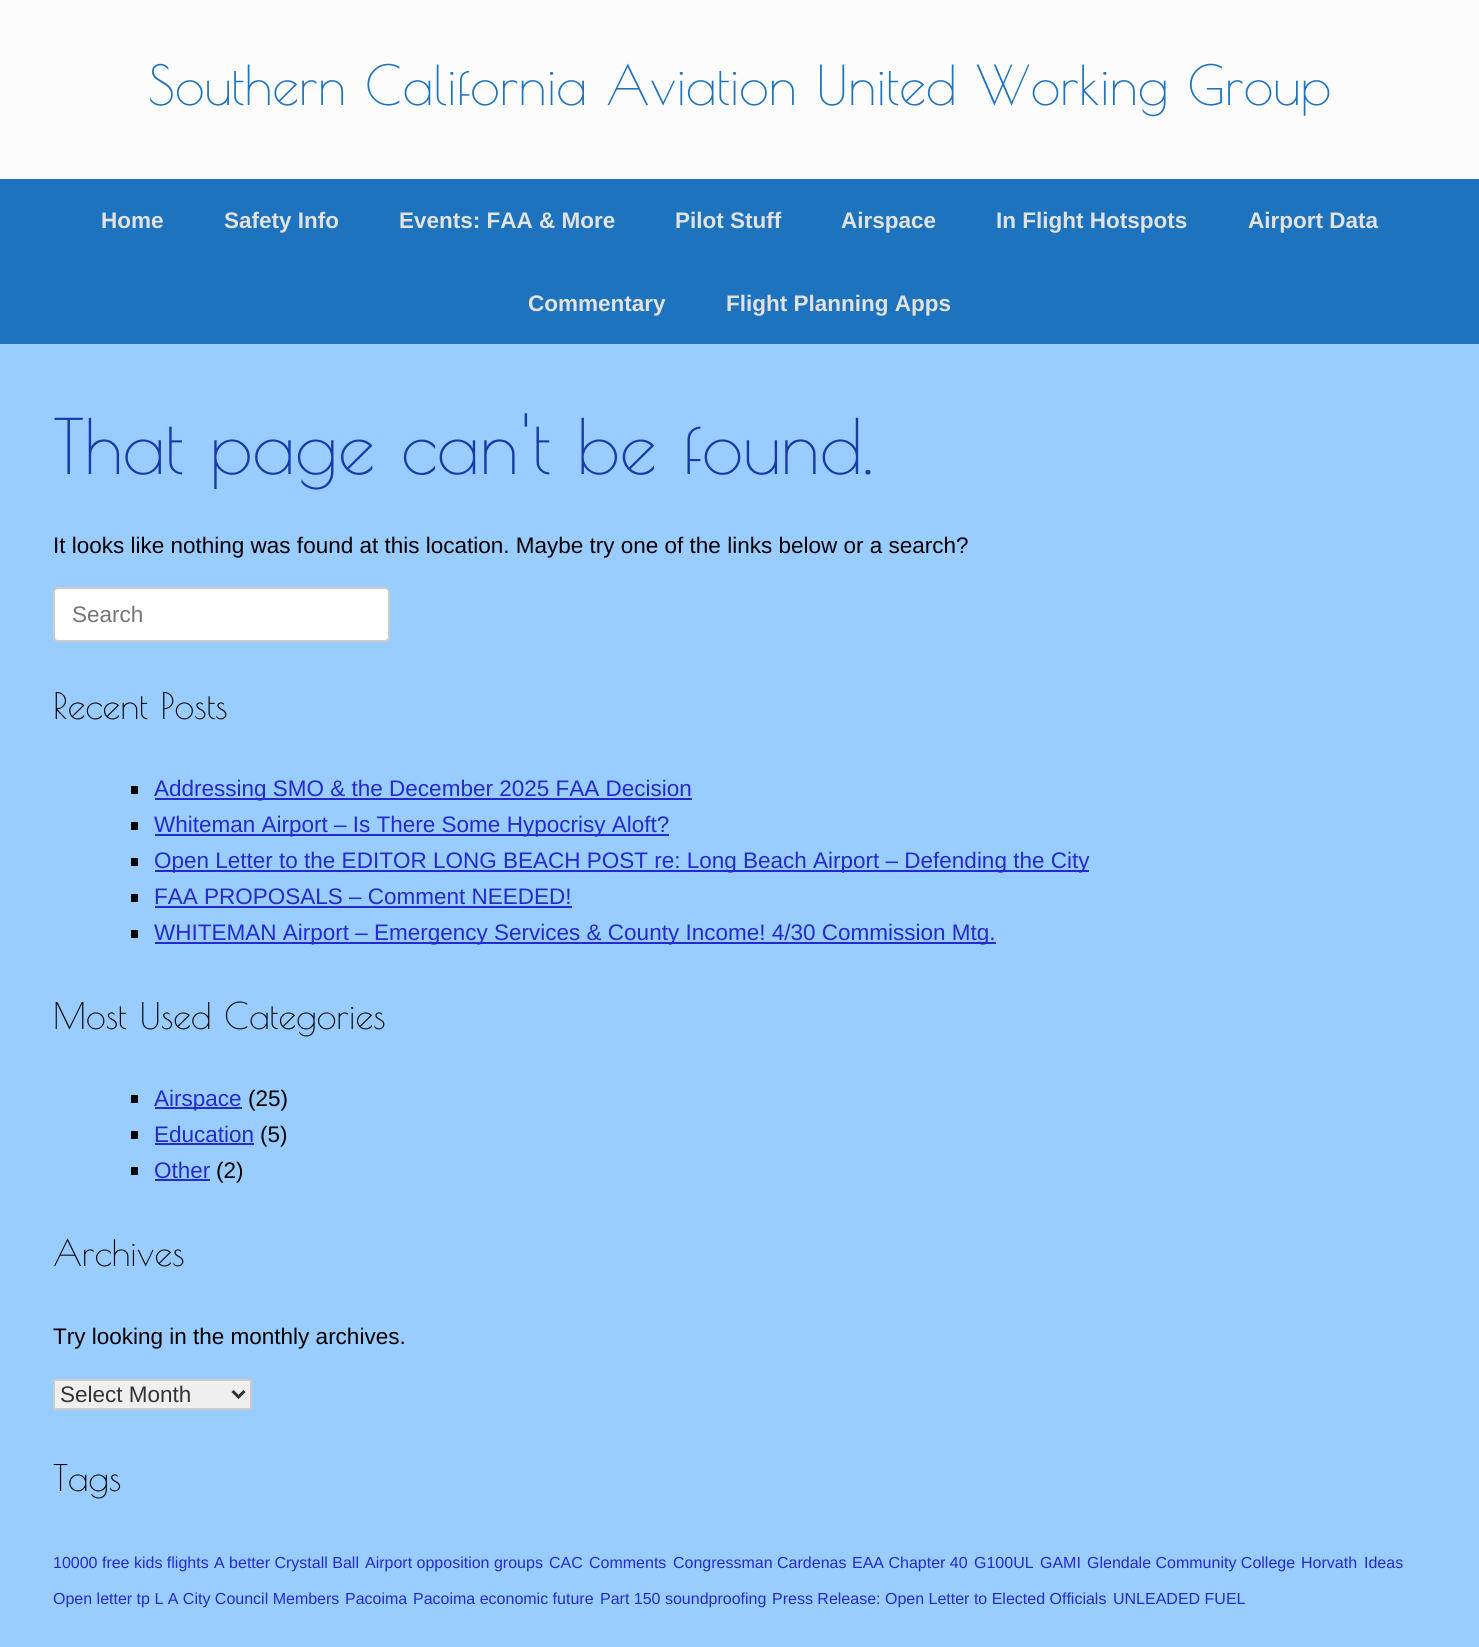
#include <cairo/cairo.h>
#include <math.h>
#include <stddef.h>


static void rounded_rect(cairo_t *cr, double x, double y, double w, double h, double r) {
  cairo_new_sub_path(cr);
  cairo_arc(cr, x + w - r, y + h - r, r, 0, M_PI / 2);
  cairo_arc(cr, x + r, y + h - r, r, M_PI / 2, M_PI);
  cairo_arc(cr, x + r, y + r, r, M_PI, 1.5 * M_PI);
  cairo_arc(cr, x + w - r, y + r, r, 1.5 * M_PI, 2 * M_PI);
  cairo_close_path(cr);
}

static void draw(cairo_t *cr) {
  cairo_set_source_rgb(cr, 252 / 255.0, 252 / 255.0, 252 / 255.0);
  cairo_paint(cr);
  cairo_set_source_rgb(cr, 30 / 255.0, 115 / 255.0, 190 / 255.0);
  cairo_rectangle(cr, 0, 179, 1479, 165);
  cairo_fill(cr);
  cairo_set_source_rgb(cr, 153 / 255.0, 204 / 255.0, 1);
  cairo_rectangle(cr, 0, 344, 1479, 1303);
  cairo_fill(cr);
  cairo_set_source_rgb(cr, 1, 1, 1);
  rounded_rect(cr, 54, 588, 335, 53, 4);
  cairo_fill_preserve(cr);
  cairo_set_source_rgb(cr, 204 / 255.0, 204 / 255.0, 204 / 255.0);
  cairo_stroke(cr);
  cairo_set_source_rgb(cr, 0, 0, 0);
  cairo_rectangle(cr, 131, 786, 7, 8);
  cairo_fill(cr);
  cairo_set_source_rgb(cr, 37 / 255.0, 42 / 255.0, 206 / 255.0);
  cairo_rectangle(cr, 155, 798, 537, 2);
  cairo_fill(cr);
  cairo_set_source_rgb(cr, 0, 0, 0);
  cairo_rectangle(cr, 131, 822, 7, 8);
  cairo_fill(cr);
  cairo_set_source_rgb(cr, 37 / 255.0, 42 / 255.0, 206 / 255.0);
  cairo_rectangle(cr, 155, 834, 514, 2);
  cairo_fill(cr);
  cairo_set_source_rgb(cr, 0, 0, 0);
  cairo_rectangle(cr, 131, 858, 7, 8);
  cairo_fill(cr);
  cairo_set_source_rgb(cr, 37 / 255.0, 42 / 255.0, 206 / 255.0);
  cairo_rectangle(cr, 155, 870, 934, 2);
  cairo_fill(cr);
  cairo_set_source_rgb(cr, 0, 0, 0);
  cairo_rectangle(cr, 131, 894, 7, 8);
  cairo_fill(cr);
  cairo_set_source_rgb(cr, 37 / 255.0, 42 / 255.0, 206 / 255.0);
  cairo_rectangle(cr, 155, 906, 417, 2);
  cairo_fill(cr);
  cairo_set_source_rgb(cr, 0, 0, 0);
  cairo_rectangle(cr, 131, 930, 7, 8);
  cairo_fill(cr);
  cairo_set_source_rgb(cr, 37 / 255.0, 42 / 255.0, 206 / 255.0);
  cairo_rectangle(cr, 155, 942, 841, 2);
  cairo_fill(cr);
  cairo_set_source_rgb(cr, 0, 0, 0);
  cairo_rectangle(cr, 131, 1095, 7, 8);
  cairo_fill(cr);
  cairo_set_source_rgb(cr, 37 / 255.0, 42 / 255.0, 206 / 255.0);
  cairo_rectangle(cr, 155, 1107, 87, 2);
  cairo_fill(cr);
  cairo_set_source_rgb(cr, 0, 0, 0);
  cairo_rectangle(cr, 131, 1131, 7, 8);
  cairo_fill(cr);
  cairo_set_source_rgb(cr, 37 / 255.0, 42 / 255.0, 206 / 255.0);
  cairo_rectangle(cr, 155, 1143, 99, 2);
  cairo_fill(cr);
  cairo_set_source_rgb(cr, 0, 0, 0);
  cairo_rectangle(cr, 131, 1167, 7, 8);
  cairo_fill(cr);
  cairo_set_source_rgb(cr, 37 / 255.0, 42 / 255.0, 206 / 255.0);
  cairo_rectangle(cr, 155, 1179, 55, 2);
  cairo_fill(cr);
  cairo_set_source_rgb(cr, 239 / 255.0, 239 / 255.0, 239 / 255.0);
  cairo_rectangle(cr, 54, 1380, 197, 29);
  cairo_fill_preserve(cr);
  cairo_set_source_rgb(cr, 204 / 255.0, 204 / 255.0, 204 / 255.0);
  cairo_stroke(cr);
  cairo_new_path(cr);
  cairo_move_to(cr, 232.5, 1391);
  cairo_line_to(cr, 238.5, 1397);
  cairo_line_to(cr, 244.5, 1391);
  cairo_set_source_rgb(cr, 51 / 255.0, 51 / 255.0, 51 / 255.0);
  cairo_set_line_width(cr, 3);
  cairo_stroke(cr);
  cairo_select_font_face(cr, "Poiret One", CAIRO_FONT_SLANT_NORMAL, CAIRO_FONT_WEIGHT_NORMAL);
  cairo_set_font_size(cr, 54);
  cairo_set_source_rgb(cr, 30 / 255.0, 115 / 255.0, 190 / 255.0);
  cairo_move_to(cr, 148, 105);
  cairo_show_text(cr, "Southern California Aviation United Working Group");
  cairo_select_font_face(cr, "Liberation Sans", CAIRO_FONT_SLANT_NORMAL, CAIRO_FONT_WEIGHT_BOLD);
  cairo_set_font_size(cr, 22.5);
  cairo_set_source_rgb(cr, 226 / 255.0, 226 / 255.0, 226 / 255.0);
  cairo_move_to(cr, 101, 228);
  cairo_show_text(cr, "Home");
  cairo_move_to(cr, 224, 228);
  cairo_show_text(cr, "Safety Info");
  cairo_move_to(cr, 399, 228);
  cairo_show_text(cr, "Events: FAA & More");
  cairo_move_to(cr, 675, 228);
  cairo_show_text(cr, "Pilot Stuff");
  cairo_move_to(cr, 841, 228);
  cairo_show_text(cr, "Airspace");
  cairo_move_to(cr, 996, 228);
  cairo_show_text(cr, "In Flight Hotspots");
  cairo_move_to(cr, 1248, 228);
  cairo_show_text(cr, "Airport Data");
  cairo_move_to(cr, 528, 311);
  cairo_show_text(cr, "Commentary");
  cairo_move_to(cr, 726, 311);
  cairo_show_text(cr, "Flight Planning Apps");
  cairo_select_font_face(cr, "Poiret One", CAIRO_FONT_SLANT_NORMAL, CAIRO_FONT_WEIGHT_NORMAL);
  cairo_set_font_size(cr, 75);
  cairo_set_source_rgb(cr, 25 / 255.0, 59 / 255.0, 170 / 255.0);
  cairo_move_to(cr, 53, 474);
  cairo_show_text(cr, "That page can't be found.");
  cairo_select_font_face(cr, "Liberation Sans", CAIRO_FONT_SLANT_NORMAL, CAIRO_FONT_WEIGHT_NORMAL);
  cairo_set_font_size(cr, 22.5);
  cairo_set_source_rgb(cr, 0, 0, 0);
  cairo_move_to(cr, 53, 553);
  cairo_show_text(cr, "It looks like nothing was found at this location. Maybe try one of the links below or a search?");
  cairo_set_source_rgb(cr, 117 / 255.0, 117 / 255.0, 117 / 255.0);
  cairo_move_to(cr, 72, 622);
  cairo_show_text(cr, "Search");
  cairo_select_font_face(cr, "Poiret One", CAIRO_FONT_SLANT_NORMAL, CAIRO_FONT_WEIGHT_NORMAL);
  cairo_set_font_size(cr, 36);
  cairo_set_source_rgb(cr, 0, 0, 0);
  cairo_move_to(cr, 53, 719);
  cairo_show_text(cr, "Recent Posts");
  cairo_select_font_face(cr, "Liberation Sans", CAIRO_FONT_SLANT_NORMAL, CAIRO_FONT_WEIGHT_NORMAL);
  cairo_set_font_size(cr, 22.5);
  cairo_set_source_rgb(cr, 37 / 255.0, 42 / 255.0, 206 / 255.0);
  cairo_move_to(cr, 154, 796);
  cairo_show_text(cr, "Addressing SMO & the December 2025 FAA Decision");
  cairo_move_to(cr, 154, 832);
  cairo_show_text(cr, "Whiteman Airport – Is There Some Hypocrisy Aloft?");
  cairo_move_to(cr, 154, 868);
  cairo_show_text(cr, "Open Letter to the EDITOR LONG BEACH POST re: Long Beach Airport – Defending the City");
  cairo_move_to(cr, 154, 904);
  cairo_show_text(cr, "FAA PROPOSALS – Comment NEEDED!");
  cairo_move_to(cr, 154, 940);
  cairo_show_text(cr, "WHITEMAN Airport – Emergency Services & County Income! 4/30 Commission Mtg.");
  cairo_select_font_face(cr, "Poiret One", CAIRO_FONT_SLANT_NORMAL, CAIRO_FONT_WEIGHT_NORMAL);
  cairo_set_font_size(cr, 36);
  cairo_set_source_rgb(cr, 0, 0, 0);
  cairo_move_to(cr, 53, 1029);
  cairo_show_text(cr, "Most Used Categories");
  cairo_select_font_face(cr, "Liberation Sans", CAIRO_FONT_SLANT_NORMAL, CAIRO_FONT_WEIGHT_NORMAL);
  cairo_set_font_size(cr, 22.5);
  cairo_set_source_rgb(cr, 37 / 255.0, 42 / 255.0, 206 / 255.0);
  cairo_move_to(cr, 154, 1106);
  cairo_show_text(cr, "Airspace");
  cairo_set_source_rgb(cr, 0, 0, 0);
  cairo_move_to(cr, 248, 1106);
  cairo_show_text(cr, "(25)");
  cairo_set_source_rgb(cr, 37 / 255.0, 42 / 255.0, 206 / 255.0);
  cairo_move_to(cr, 154, 1142);
  cairo_show_text(cr, "Education");
  cairo_set_source_rgb(cr, 0, 0, 0);
  cairo_move_to(cr, 260, 1142);
  cairo_show_text(cr, "(5)");
  cairo_set_source_rgb(cr, 37 / 255.0, 42 / 255.0, 206 / 255.0);
  cairo_move_to(cr, 154, 1178);
  cairo_show_text(cr, "Other");
  cairo_set_source_rgb(cr, 0, 0, 0);
  cairo_move_to(cr, 216, 1178);
  cairo_show_text(cr, "(2)");
  cairo_select_font_face(cr, "Poiret One", CAIRO_FONT_SLANT_NORMAL, CAIRO_FONT_WEIGHT_NORMAL);
  cairo_set_font_size(cr, 36);
  cairo_move_to(cr, 53, 1266);
  cairo_show_text(cr, "Archives");
  cairo_select_font_face(cr, "Liberation Sans", CAIRO_FONT_SLANT_NORMAL, CAIRO_FONT_WEIGHT_NORMAL);
  cairo_set_font_size(cr, 22.5);
  cairo_move_to(cr, 53, 1344);
  cairo_show_text(cr, "Try looking in the monthly archives.");
  cairo_set_source_rgb(cr, 51 / 255.0, 51 / 255.0, 51 / 255.0);
  cairo_move_to(cr, 60, 1402);
  cairo_show_text(cr, "Select Month");
  cairo_select_font_face(cr, "Poiret One", CAIRO_FONT_SLANT_NORMAL, CAIRO_FONT_WEIGHT_NORMAL);
  cairo_set_font_size(cr, 36);
  cairo_set_source_rgb(cr, 0, 0, 0);
  cairo_move_to(cr, 53, 1491);
  cairo_show_text(cr, "Tags");
  cairo_select_font_face(cr, "Liberation Sans", CAIRO_FONT_SLANT_NORMAL, CAIRO_FONT_WEIGHT_NORMAL);
  cairo_set_font_size(cr, 16);
  cairo_set_source_rgb(cr, 37 / 255.0, 42 / 255.0, 206 / 255.0);
  cairo_move_to(cr, 53, 1568);
  cairo_show_text(cr, "10000 free kids flights");
  cairo_move_to(cr, 214, 1568);
  cairo_show_text(cr, "A better Crystall Ball");
  cairo_move_to(cr, 365, 1568);
  cairo_show_text(cr, "Airport opposition groups");
  cairo_move_to(cr, 549, 1568);
  cairo_show_text(cr, "CAC");
  cairo_move_to(cr, 589, 1568);
  cairo_show_text(cr, "Comments");
  cairo_move_to(cr, 673, 1568);
  cairo_show_text(cr, "Congressman Cardenas");
  cairo_move_to(cr, 852, 1568);
  cairo_show_text(cr, "EAA Chapter 40");
  cairo_move_to(cr, 974, 1568);
  cairo_show_text(cr, "G100UL");
  cairo_move_to(cr, 1040, 1568);
  cairo_show_text(cr, "GAMI");
  cairo_move_to(cr, 1087, 1568);
  cairo_show_text(cr, "Glendale Community College");
  cairo_move_to(cr, 1301, 1568);
  cairo_show_text(cr, "Horvath");
  cairo_move_to(cr, 1364, 1568);
  cairo_show_text(cr, "Ideas");
  cairo_move_to(cr, 53, 1604);
  cairo_show_text(cr, "Open letter tp L A City Council Members");
  cairo_move_to(cr, 345, 1604);
  cairo_show_text(cr, "Pacoima");
  cairo_move_to(cr, 413, 1604);
  cairo_show_text(cr, "Pacoima economic future");
  cairo_move_to(cr, 600, 1604);
  cairo_show_text(cr, "Part 150 soundproofing");
  cairo_move_to(cr, 772, 1604);
  cairo_show_text(cr, "Press Release: Open Letter to Elected Officials");
  cairo_move_to(cr, 1113, 1604);
  cairo_show_text(cr, "UNLEADED FUEL");
}

int main(void) {
  cairo_surface_t *surface = cairo_image_surface_create(CAIRO_FORMAT_RGB24, 1479, 1647);
  cairo_t *cr = cairo_create(surface);
  cairo_font_options_t *options = cairo_font_options_create();
  cairo_font_options_set_hint_metrics(options, CAIRO_HINT_METRICS_OFF);
  cairo_font_options_set_hint_style(options, CAIRO_HINT_STYLE_NONE);
  cairo_set_font_options(cr, options);
  cairo_set_miter_limit(cr, 4);
  draw(cr);
  cairo_surface_write_to_png(surface, "out.png");
  cairo_font_options_destroy(options);
  cairo_destroy(cr);
  cairo_surface_destroy(surface);
  return 0;
}
